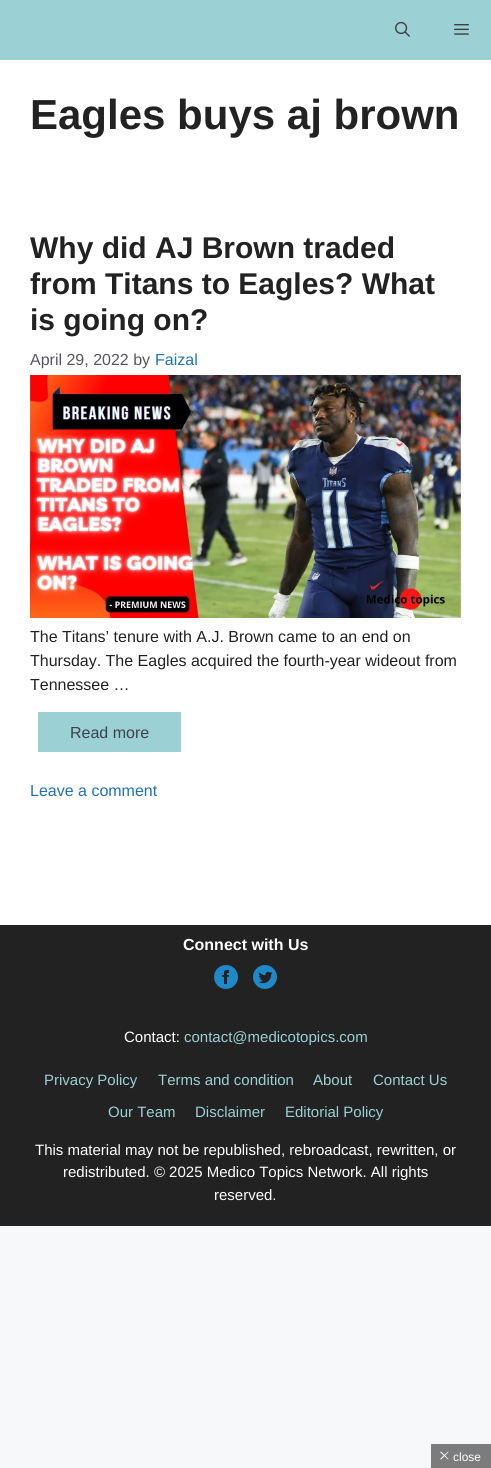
#include <cairo/cairo.h>
#include <math.h>
#include <stddef.h>


static void draw_image(cairo_t *cr, const char *path, double x, double y, double w, double h) {
  cairo_surface_t *image = cairo_image_surface_create_from_png(path);
  cairo_save(cr);
  cairo_set_source_surface(cr, image, x, y);
  cairo_rectangle(cr, x, y, w, h);
  cairo_fill(cr);
  cairo_restore(cr);
  cairo_surface_destroy(image);
}

static void draw(cairo_t *cr) {
  cairo_set_source_rgb(cr, 247 / 255.0, 248 / 255.0, 249 / 255.0);
  cairo_paint(cr);
  cairo_set_source_rgb(cr, 155 / 255.0, 208 / 255.0, 212 / 255.0);
  cairo_rectangle(cr, 0, 0, 491, 60);
  cairo_fill(cr);
  draw_image(cr, "images/1.png", 395, 21, 15, 16);
  draw_image(cr, "images/2.png", 454, 24, 15, 11);
  cairo_set_source_rgb(cr, 1, 1, 1);
  cairo_rectangle(cr, 0, 60, 491, 865);
  cairo_fill(cr);
  draw_image(cr, "images/3.png", 30, 375, 431, 243);
  cairo_set_source_rgb(cr, 155 / 255.0, 208 / 255.0, 212 / 255.0);
  cairo_rectangle(cr, 38, 712, 143, 40);
  cairo_fill(cr);
  cairo_set_source_rgb(cr, 34 / 255.0, 34 / 255.0, 34 / 255.0);
  cairo_rectangle(cr, 0, 925, 491, 301);
  cairo_fill(cr);
  draw_image(cr, "images/4.png", 214, 965, 24, 24);
  draw_image(cr, "images/5.png", 253, 965, 24, 24);
  cairo_set_source_rgb(cr, 124 / 255.0, 124 / 255.0, 125 / 255.0);
  cairo_rectangle(cr, 431, 1444, 60, 24);
  cairo_fill(cr);
  cairo_set_source_rgb(cr, 1, 1, 1);
  cairo_new_path(cr);
  cairo_move_to(cr, 441, 1451.5);
  cairo_line_to(cr, 448.5, 1459);
  cairo_line_to(cr, 448, 1459.5);
  cairo_line_to(cr, 440, 1452);
  cairo_close_path(cr);
  cairo_fill(cr);
  cairo_new_path(cr);
  cairo_move_to(cr, 448, 1451.5);
  cairo_line_to(cr, 448.5, 1452);
  cairo_line_to(cr, 441, 1459.5);
  cairo_line_to(cr, 440, 1459);
  cairo_close_path(cr);
  cairo_fill(cr);
  cairo_select_font_face(cr, "Liberation Sans", CAIRO_FONT_SLANT_NORMAL, CAIRO_FONT_WEIGHT_BOLD);
  cairo_set_font_size(cr, 42);
  cairo_set_source_rgb(cr, 34 / 255.0, 34 / 255.0, 34 / 255.0);
  cairo_move_to(cr, 30, 129);
  cairo_show_text(cr, "Eagles buys aj brown");
  cairo_set_font_size(cr, 30);
  cairo_move_to(cr, 30, 258);
  cairo_show_text(cr, "Why did AJ Brown traded");
  cairo_move_to(cr, 30, 294);
  cairo_show_text(cr, "from Titans to Eagles? What");
  cairo_move_to(cr, 30, 330);
  cairo_show_text(cr, "is going on?");
  cairo_select_font_face(cr, "Liberation Sans", CAIRO_FONT_SLANT_NORMAL, CAIRO_FONT_WEIGHT_NORMAL);
  cairo_set_font_size(cr, 16);
  cairo_set_source_rgb(cr, 87 / 255.0, 87 / 255.0, 96 / 255.0);
  cairo_move_to(cr, 30, 365);
  cairo_show_text(cr, "April 29, 2022 by");
  cairo_set_source_rgb(cr, 30 / 255.0, 115 / 255.0, 190 / 255.0);
  cairo_move_to(cr, 155, 365);
  cairo_show_text(cr, "Faizal");
  cairo_set_source_rgb(cr, 34 / 255.0, 34 / 255.0, 34 / 255.0);
  cairo_move_to(cr, 30, 642);
  cairo_show_text(cr, "The Titans’ tenure with A.J. Brown came to an end on");
  cairo_move_to(cr, 30, 666);
  cairo_show_text(cr, "Thursday. The Eagles acquired the fourth-year wideout from");
  cairo_move_to(cr, 30, 690);
  cairo_show_text(cr, "Tennessee …");
  cairo_set_source_rgb(cr, 60 / 255.0, 67 / 255.0, 74 / 255.0);
  cairo_move_to(cr, 70, 738);
  cairo_show_text(cr, "Read more");
  cairo_set_source_rgb(cr, 30 / 255.0, 115 / 255.0, 190 / 255.0);
  cairo_move_to(cr, 30, 796);
  cairo_show_text(cr, "Leave a comment");
  cairo_select_font_face(cr, "Liberation Sans", CAIRO_FONT_SLANT_NORMAL, CAIRO_FONT_WEIGHT_BOLD);
  cairo_set_source_rgb(cr, 1, 1, 1);
  cairo_move_to(cr, 183, 950);
  cairo_show_text(cr, "Connect with Us");
  cairo_select_font_face(cr, "Liberation Sans", CAIRO_FONT_SLANT_NORMAL, CAIRO_FONT_WEIGHT_NORMAL);
  cairo_set_font_size(cr, 15);
  cairo_move_to(cr, 124, 1042);
  cairo_show_text(cr, "Contact:");
  cairo_set_source_rgb(cr, 155 / 255.0, 208 / 255.0, 212 / 255.0);
  cairo_move_to(cr, 184, 1042);
  cairo_show_text(cr, "contact@medicotopics.com");
  cairo_move_to(cr, 44, 1085);
  cairo_show_text(cr, "Privacy Policy");
  cairo_move_to(cr, 158, 1085);
  cairo_show_text(cr, "Terms and condition");
  cairo_move_to(cr, 313, 1085);
  cairo_show_text(cr, "About");
  cairo_move_to(cr, 373, 1085);
  cairo_show_text(cr, "Contact Us");
  cairo_move_to(cr, 108, 1117);
  cairo_show_text(cr, "Our Team");
  cairo_move_to(cr, 195, 1117);
  cairo_show_text(cr, "Disclaimer");
  cairo_move_to(cr, 285, 1117);
  cairo_show_text(cr, "Editorial Policy");
  cairo_set_source_rgb(cr, 1, 1, 1);
  cairo_move_to(cr, 35, 1155);
  cairo_show_text(cr, "This material may not be republished, rebroadcast, rewritten, or");
  cairo_move_to(cr, 63, 1177);
  cairo_show_text(cr, "redistributed. © 2025 Medico Topics Network. All rights");
  cairo_move_to(cr, 214, 1200);
  cairo_show_text(cr, "reserved.");
  cairo_set_font_size(cr, 12);
  cairo_move_to(cr, 453, 1461);
  cairo_show_text(cr, "close");
}

int main(void) {
  cairo_surface_t *surface = cairo_image_surface_create(CAIRO_FORMAT_RGB24, 491, 1468);
  cairo_t *cr = cairo_create(surface);
  cairo_font_options_t *options = cairo_font_options_create();
  cairo_font_options_set_hint_metrics(options, CAIRO_HINT_METRICS_OFF);
  cairo_font_options_set_hint_style(options, CAIRO_HINT_STYLE_NONE);
  cairo_set_font_options(cr, options);
  cairo_set_miter_limit(cr, 4);
  draw(cr);
  cairo_surface_write_to_png(surface, "out.png");
  cairo_font_options_destroy(options);
  cairo_destroy(cr);
  cairo_surface_destroy(surface);
  return 0;
}
